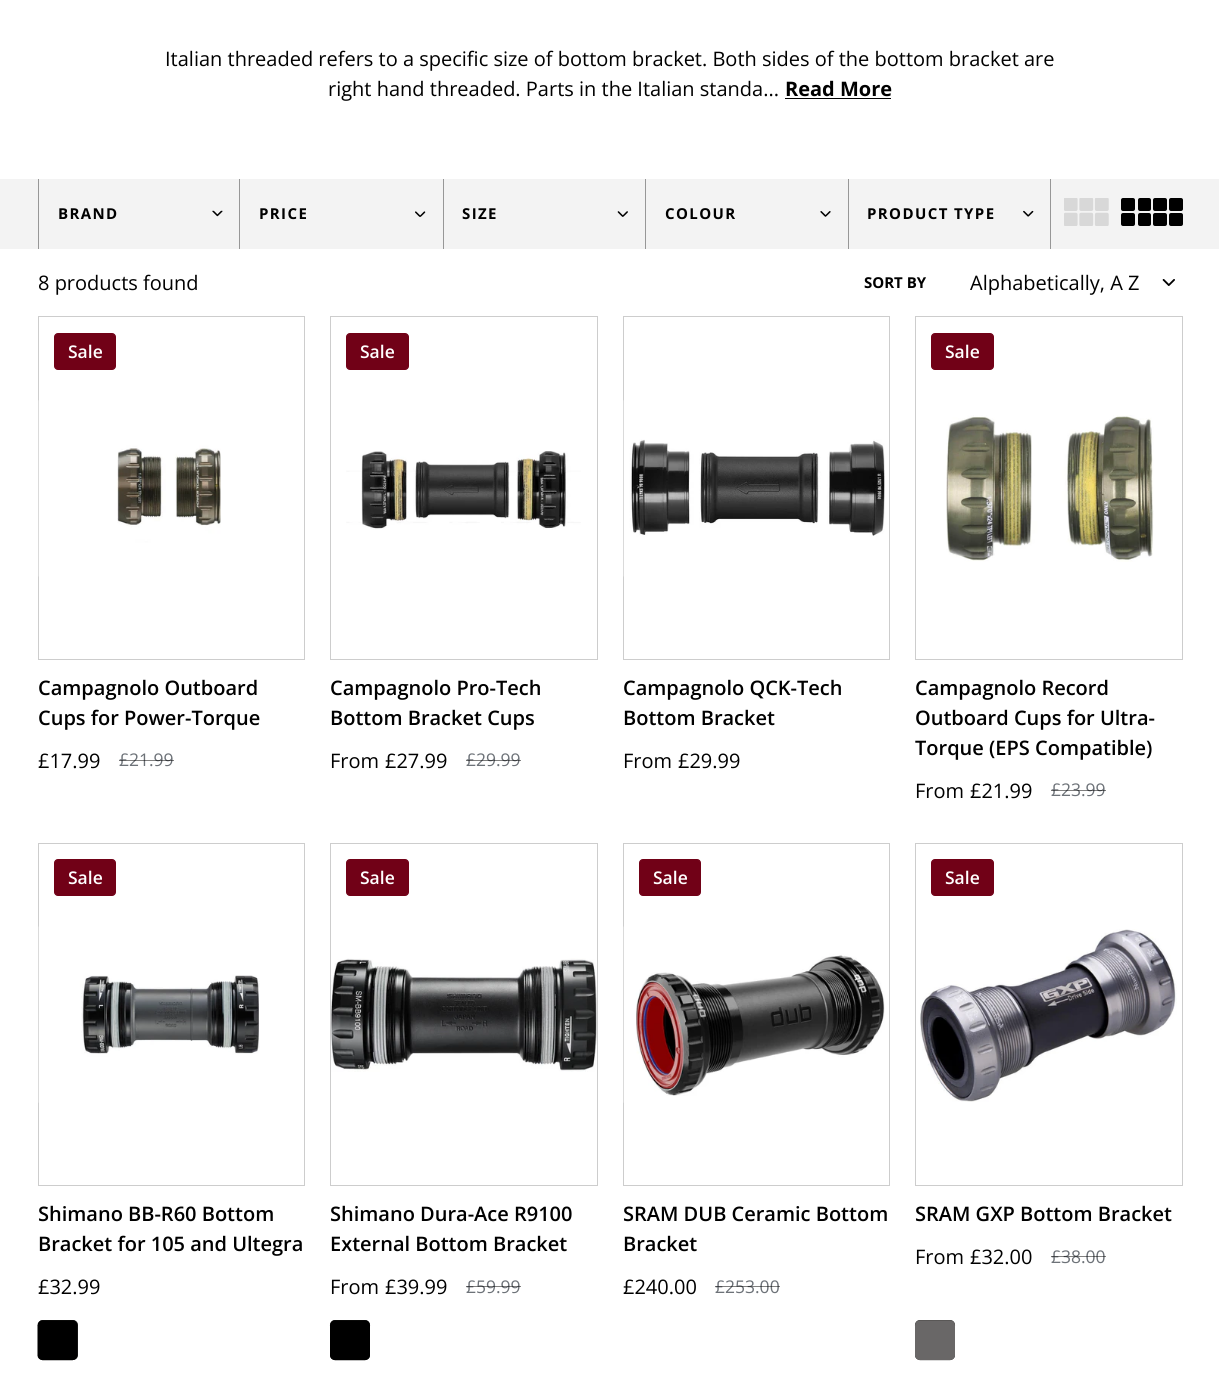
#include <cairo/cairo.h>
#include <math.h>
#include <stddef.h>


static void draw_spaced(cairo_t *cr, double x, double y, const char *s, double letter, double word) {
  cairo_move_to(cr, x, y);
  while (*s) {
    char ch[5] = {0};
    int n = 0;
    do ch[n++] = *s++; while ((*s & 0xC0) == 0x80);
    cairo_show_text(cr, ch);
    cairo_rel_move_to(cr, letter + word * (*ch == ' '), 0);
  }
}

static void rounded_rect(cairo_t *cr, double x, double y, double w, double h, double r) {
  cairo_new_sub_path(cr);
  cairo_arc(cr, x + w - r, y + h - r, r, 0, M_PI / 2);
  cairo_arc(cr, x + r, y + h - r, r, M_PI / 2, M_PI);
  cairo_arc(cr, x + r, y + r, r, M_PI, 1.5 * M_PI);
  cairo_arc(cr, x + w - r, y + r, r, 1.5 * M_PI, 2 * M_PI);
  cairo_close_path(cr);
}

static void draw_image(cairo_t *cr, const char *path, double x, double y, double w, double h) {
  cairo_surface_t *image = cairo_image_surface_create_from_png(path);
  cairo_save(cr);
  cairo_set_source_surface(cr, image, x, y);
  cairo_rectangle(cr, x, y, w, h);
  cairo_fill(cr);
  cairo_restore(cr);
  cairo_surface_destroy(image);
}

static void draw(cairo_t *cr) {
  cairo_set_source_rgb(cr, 1, 1, 1);
  cairo_paint(cr);
  cairo_set_source_rgb(cr, 0, 0, 0);
  cairo_rectangle(cr, 785, 98, 106, 1);
  cairo_fill(cr);
  cairo_set_source_rgb(cr, 243 / 255.0, 243 / 255.0, 243 / 255.0);
  cairo_rectangle(cr, 0, 179, 1219, 70);
  cairo_fill(cr);
  cairo_set_source_rgb(cr, 151 / 255.0, 151 / 255.0, 151 / 255.0);
  cairo_rectangle(cr, 239, 179, 1, 70);
  cairo_fill(cr);
  cairo_rectangle(cr, 38, 179, 1, 70);
  cairo_fill(cr);
  draw_image(cr, "images/1.png", 212, 210, 11, 7);
  cairo_rectangle(cr, 443, 179, 1, 70);
  cairo_fill(cr);
  draw_image(cr, "images/2.png", 415, 211, 11, 6);
  cairo_rectangle(cr, 645, 179, 1, 70);
  cairo_fill(cr);
  draw_image(cr, "images/3.png", 617, 211, 11, 6);
  cairo_rectangle(cr, 848, 179, 1, 70);
  cairo_fill(cr);
  draw_image(cr, "images/4.png", 820, 211, 11, 6);
  cairo_rectangle(cr, 1050, 179, 1, 70);
  cairo_fill(cr);
  draw_image(cr, "images/5.png", 1023, 210, 11, 7);
  draw_image(cr, "images/6.png", 1064, 198, 45, 28);
  cairo_set_source_rgb(cr, 0, 0, 0);
  rounded_rect(cr, 1121, 198, 14, 13, 2);
  cairo_fill(cr);
  rounded_rect(cr, 1138, 198, 13, 13, 2);
  cairo_fill(cr);
  rounded_rect(cr, 1153, 198, 14, 13, 2);
  cairo_fill(cr);
  rounded_rect(cr, 1169, 198, 14, 13, 2);
  cairo_fill(cr);
  rounded_rect(cr, 1121, 213, 14, 13, 2);
  cairo_fill(cr);
  rounded_rect(cr, 1138, 213, 13, 13, 2);
  cairo_fill(cr);
  rounded_rect(cr, 1153, 213, 14, 13, 2);
  cairo_fill(cr);
  rounded_rect(cr, 1169, 213, 14, 13, 2);
  cairo_fill(cr);
  draw_image(cr, "images/7.png", 1162, 279, 13, 7);
  cairo_rectangle(cr, 38.5, 316.5, 266, 343);
  cairo_set_source_rgb(cr, 205 / 255.0, 205 / 255.0, 205 / 255.0);
  cairo_set_line_width(cr, 1);
  cairo_stroke(cr);
  cairo_set_source_rgb(cr, 113 / 255.0, 1 / 255.0, 23 / 255.0);
  rounded_rect(cr, 54.5, 333.5, 61, 36, 3.5);
  cairo_fill_preserve(cr);
  cairo_stroke(cr);
  draw_image(cr, "images/8.png", 38, 400, 183, 177);
  cairo_rectangle(cr, 330.5, 316.5, 267, 343);
  cairo_set_source_rgb(cr, 205 / 255.0, 205 / 255.0, 205 / 255.0);
  cairo_stroke(cr);
  cairo_set_source_rgb(cr, 113 / 255.0, 1 / 255.0, 23 / 255.0);
  rounded_rect(cr, 346.5, 333.5, 62, 36, 3.5);
  cairo_fill_preserve(cr);
  cairo_stroke(cr);
  draw_image(cr, "images/9.png", 346, 451, 235, 79);
  cairo_rectangle(cr, 623.5, 316.5, 266, 343);
  cairo_set_source_rgb(cr, 205 / 255.0, 205 / 255.0, 205 / 255.0);
  cairo_stroke(cr);
  draw_image(cr, "images/10.png", 623, 400, 262, 177);
  cairo_rectangle(cr, 915.5, 316.5, 267, 343);
  cairo_stroke(cr);
  cairo_set_source_rgb(cr, 113 / 255.0, 1 / 255.0, 23 / 255.0);
  rounded_rect(cr, 931.5, 333.5, 62, 36, 3.5);
  cairo_fill_preserve(cr);
  cairo_stroke(cr);
  draw_image(cr, "images/11.png", 946, 415, 208, 147);
  cairo_rectangle(cr, 38.5, 843.5, 266, 342);
  cairo_set_source_rgb(cr, 205 / 255.0, 205 / 255.0, 205 / 255.0);
  cairo_stroke(cr);
  cairo_set_source_rgb(cr, 113 / 255.0, 1 / 255.0, 23 / 255.0);
  rounded_rect(cr, 54.5, 859.5, 61, 36, 3.5);
  cairo_fill_preserve(cr);
  cairo_stroke(cr);
  draw_image(cr, "images/12.png", 38, 926, 222, 177);
  cairo_set_source_rgb(cr, 39 / 255.0, 39 / 255.0, 38 / 255.0);
  rounded_rect(cr, 38, 1320, 40, 40, 5);
  cairo_fill(cr);
  draw_image(cr, "images/13.png", 37, 1320, 41, 41);
  cairo_rectangle(cr, 330.5, 843.5, 267, 342);
  cairo_set_source_rgb(cr, 205 / 255.0, 205 / 255.0, 205 / 255.0);
  cairo_stroke(cr);
  cairo_set_source_rgb(cr, 113 / 255.0, 1 / 255.0, 23 / 255.0);
  rounded_rect(cr, 346.5, 859.5, 62, 36, 3.5);
  cairo_fill_preserve(cr);
  cairo_stroke(cr);
  draw_image(cr, "images/14.png", 331, 958, 266, 114);
  cairo_set_source_rgb(cr, 39 / 255.0, 39 / 255.0, 38 / 255.0);
  rounded_rect(cr, 330, 1320, 40, 40, 5);
  cairo_fill(cr);
  draw_image(cr, "images/15.png", 329, 1320, 42, 41);
  cairo_rectangle(cr, 623.5, 843.5, 266, 342);
  cairo_set_source_rgb(cr, 205 / 255.0, 205 / 255.0, 205 / 255.0);
  cairo_stroke(cr);
  cairo_set_source_rgb(cr, 113 / 255.0, 1 / 255.0, 23 / 255.0);
  rounded_rect(cr, 639.5, 859.5, 61, 36, 3.5);
  cairo_fill_preserve(cr);
  cairo_stroke(cr);
  draw_image(cr, "images/16.png", 623, 926, 262, 177);
  cairo_rectangle(cr, 915.5, 843.5, 267, 342);
  cairo_set_source_rgb(cr, 205 / 255.0, 205 / 255.0, 205 / 255.0);
  cairo_stroke(cr);
  cairo_set_source_rgb(cr, 113 / 255.0, 1 / 255.0, 23 / 255.0);
  rounded_rect(cr, 931.5, 859.5, 62, 36, 3.5);
  cairo_fill_preserve(cr);
  cairo_stroke(cr);
  draw_image(cr, "images/17.png", 920, 929, 257, 173);
  cairo_set_source_rgb(cr, 39 / 255.0, 39 / 255.0, 38 / 255.0);
  rounded_rect(cr, 915, 1320, 40, 40, 5);
  cairo_fill(cr);
  draw_image(cr, "images/18.png", 914, 1320, 42, 41);
  cairo_select_font_face(cr, "Open Sans", CAIRO_FONT_SLANT_NORMAL, CAIRO_FONT_WEIGHT_NORMAL);
  cairo_set_font_size(cr, 20);
  cairo_set_source_rgb(cr, 0, 0, 0);
  cairo_move_to(cr, 165, 66);
  cairo_show_text(cr, "Italian threaded refers to a specific size of bottom bracket. Both sides of the bottom bracket are");
  cairo_move_to(cr, 328, 96);
  cairo_show_text(cr, "right hand threaded. Parts in the Italian standa...");
  cairo_select_font_face(cr, "Open Sans", CAIRO_FONT_SLANT_NORMAL, CAIRO_FONT_WEIGHT_BOLD);
  cairo_move_to(cr, 785, 96);
  cairo_show_text(cr, "Read More");
  cairo_set_font_size(cr, 15);
  draw_spaced(cr, 58, 219, "BRAND", 1.4, 0);
  draw_spaced(cr, 259, 219, "PRICE", 1.4, 0);
  draw_spaced(cr, 462, 219, "SIZE", 1.4, 0);
  draw_spaced(cr, 665, 219, "COLOUR", 1.4, 0);
  draw_spaced(cr, 867, 219, "PRODUCT TYPE", 1.4, 0);
  cairo_select_font_face(cr, "Open Sans", CAIRO_FONT_SLANT_NORMAL, CAIRO_FONT_WEIGHT_NORMAL);
  cairo_set_font_size(cr, 20);
  cairo_move_to(cr, 38, 290);
  cairo_show_text(cr, "8 products found");
  cairo_select_font_face(cr, "Open Sans", CAIRO_FONT_SLANT_NORMAL, CAIRO_FONT_WEIGHT_BOLD);
  cairo_set_font_size(cr, 15);
  cairo_move_to(cr, 864, 288);
  cairo_show_text(cr, "SORT BY");
  cairo_select_font_face(cr, "Open Sans", CAIRO_FONT_SLANT_NORMAL, CAIRO_FONT_WEIGHT_NORMAL);
  cairo_set_font_size(cr, 20);
  cairo_move_to(cr, 970, 290);
  cairo_show_text(cr, "Alphabetically, A Z");
  cairo_select_font_face(cr, "Open Sans SemiBold", CAIRO_FONT_SLANT_NORMAL, CAIRO_FONT_WEIGHT_NORMAL);
  cairo_set_font_size(cr, 17.5);
  cairo_set_source_rgb(cr, 1, 1, 1);
  cairo_move_to(cr, 68, 358);
  cairo_show_text(cr, "Sale");
  cairo_set_font_size(cr, 20);
  cairo_set_source_rgb(cr, 0, 0, 0);
  cairo_move_to(cr, 38, 695);
  cairo_show_text(cr, "Campagnolo Outboard");
  cairo_move_to(cr, 38, 725);
  cairo_show_text(cr, "Cups for Power-Torque");
  cairo_select_font_face(cr, "Open Sans", CAIRO_FONT_SLANT_NORMAL, CAIRO_FONT_WEIGHT_NORMAL);
  cairo_move_to(cr, 38, 768);
  cairo_show_text(cr, "£17.99");
  cairo_set_font_size(cr, 17.5);
  cairo_set_source_rgb(cr, 109 / 255.0, 114 / 255.0, 120 / 255.0);
  cairo_move_to(cr, 119, 766);
  cairo_show_text(cr, "£21.99");
  cairo_set_source_rgba(cr, 0, 0, 0, 0.5);
  cairo_rectangle(cr, 119, 760, 55, 1);
  cairo_fill(cr);
  cairo_select_font_face(cr, "Open Sans SemiBold", CAIRO_FONT_SLANT_NORMAL, CAIRO_FONT_WEIGHT_NORMAL);
  cairo_set_source_rgb(cr, 1, 1, 1);
  cairo_move_to(cr, 360, 358);
  cairo_show_text(cr, "Sale");
  cairo_set_font_size(cr, 20);
  cairo_set_source_rgb(cr, 0, 0, 0);
  cairo_move_to(cr, 330, 695);
  cairo_show_text(cr, "Campagnolo Pro-Tech");
  cairo_move_to(cr, 330, 725);
  cairo_show_text(cr, "Bottom Bracket Cups");
  cairo_select_font_face(cr, "Open Sans", CAIRO_FONT_SLANT_NORMAL, CAIRO_FONT_WEIGHT_NORMAL);
  cairo_move_to(cr, 330, 768);
  cairo_show_text(cr, "From");
  cairo_move_to(cr, 385, 768);
  cairo_show_text(cr, "£27.99");
  cairo_set_font_size(cr, 17.5);
  cairo_set_source_rgb(cr, 109 / 255.0, 114 / 255.0, 120 / 255.0);
  cairo_move_to(cr, 466, 766);
  cairo_show_text(cr, "£29.99");
  cairo_set_source_rgba(cr, 0, 0, 0, 0.5);
  cairo_rectangle(cr, 466, 760, 55, 1);
  cairo_fill(cr);
  cairo_select_font_face(cr, "Open Sans SemiBold", CAIRO_FONT_SLANT_NORMAL, CAIRO_FONT_WEIGHT_NORMAL);
  cairo_set_font_size(cr, 20);
  cairo_set_source_rgb(cr, 0, 0, 0);
  cairo_move_to(cr, 623, 695);
  cairo_show_text(cr, "Campagnolo QCK-Tech");
  cairo_move_to(cr, 623, 725);
  cairo_show_text(cr, "Bottom Bracket");
  cairo_select_font_face(cr, "Open Sans", CAIRO_FONT_SLANT_NORMAL, CAIRO_FONT_WEIGHT_NORMAL);
  cairo_move_to(cr, 623, 768);
  cairo_show_text(cr, "From");
  cairo_move_to(cr, 678, 768);
  cairo_show_text(cr, "£29.99");
  cairo_select_font_face(cr, "Open Sans SemiBold", CAIRO_FONT_SLANT_NORMAL, CAIRO_FONT_WEIGHT_NORMAL);
  cairo_set_font_size(cr, 17.5);
  cairo_set_source_rgb(cr, 1, 1, 1);
  cairo_move_to(cr, 945, 358);
  cairo_show_text(cr, "Sale");
  cairo_set_font_size(cr, 20);
  cairo_set_source_rgb(cr, 0, 0, 0);
  cairo_move_to(cr, 915, 695);
  cairo_show_text(cr, "Campagnolo Record");
  cairo_move_to(cr, 915, 725);
  cairo_show_text(cr, "Outboard Cups for Ultra-");
  cairo_move_to(cr, 915, 755);
  cairo_show_text(cr, "Torque (EPS Compatible)");
  cairo_select_font_face(cr, "Open Sans", CAIRO_FONT_SLANT_NORMAL, CAIRO_FONT_WEIGHT_NORMAL);
  cairo_move_to(cr, 915, 798);
  cairo_show_text(cr, "From");
  cairo_move_to(cr, 970, 798);
  cairo_show_text(cr, "£21.99");
  cairo_set_font_size(cr, 17.5);
  cairo_set_source_rgb(cr, 109 / 255.0, 114 / 255.0, 120 / 255.0);
  cairo_move_to(cr, 1051, 796);
  cairo_show_text(cr, "£23.99");
  cairo_set_source_rgba(cr, 0, 0, 0, 0.5);
  cairo_rectangle(cr, 1051, 790, 55, 1);
  cairo_fill(cr);
  cairo_select_font_face(cr, "Open Sans SemiBold", CAIRO_FONT_SLANT_NORMAL, CAIRO_FONT_WEIGHT_NORMAL);
  cairo_set_source_rgb(cr, 1, 1, 1);
  cairo_move_to(cr, 68, 884);
  cairo_show_text(cr, "Sale");
  cairo_set_font_size(cr, 20);
  cairo_set_source_rgb(cr, 0, 0, 0);
  cairo_move_to(cr, 38, 1221);
  cairo_show_text(cr, "Shimano BB-R60 Bottom");
  cairo_move_to(cr, 38, 1251);
  cairo_show_text(cr, "Bracket for 105 and Ultegra");
  cairo_select_font_face(cr, "Open Sans", CAIRO_FONT_SLANT_NORMAL, CAIRO_FONT_WEIGHT_NORMAL);
  cairo_move_to(cr, 38, 1294);
  cairo_show_text(cr, "£32.99");
  cairo_select_font_face(cr, "Open Sans SemiBold", CAIRO_FONT_SLANT_NORMAL, CAIRO_FONT_WEIGHT_NORMAL);
  cairo_set_font_size(cr, 17.5);
  cairo_set_source_rgb(cr, 1, 1, 1);
  cairo_move_to(cr, 360, 884);
  cairo_show_text(cr, "Sale");
  cairo_set_font_size(cr, 20);
  cairo_set_source_rgb(cr, 0, 0, 0);
  cairo_move_to(cr, 330, 1221);
  cairo_show_text(cr, "Shimano Dura-Ace R9100");
  cairo_move_to(cr, 330, 1251);
  cairo_show_text(cr, "External Bottom Bracket");
  cairo_select_font_face(cr, "Open Sans", CAIRO_FONT_SLANT_NORMAL, CAIRO_FONT_WEIGHT_NORMAL);
  cairo_move_to(cr, 330, 1294);
  cairo_show_text(cr, "From");
  cairo_move_to(cr, 385, 1294);
  cairo_show_text(cr, "£39.99");
  cairo_set_font_size(cr, 17.5);
  cairo_set_source_rgb(cr, 109 / 255.0, 114 / 255.0, 120 / 255.0);
  cairo_move_to(cr, 466, 1293);
  cairo_show_text(cr, "£59.99");
  cairo_set_source_rgba(cr, 0, 0, 0, 0.5);
  cairo_rectangle(cr, 466, 1286, 55, 1);
  cairo_fill(cr);
  cairo_select_font_face(cr, "Open Sans SemiBold", CAIRO_FONT_SLANT_NORMAL, CAIRO_FONT_WEIGHT_NORMAL);
  cairo_set_source_rgb(cr, 1, 1, 1);
  cairo_move_to(cr, 653, 884);
  cairo_show_text(cr, "Sale");
  cairo_set_font_size(cr, 20);
  cairo_set_source_rgb(cr, 0, 0, 0);
  cairo_move_to(cr, 623, 1221);
  cairo_show_text(cr, "SRAM DUB Ceramic Bottom");
  cairo_move_to(cr, 623, 1251);
  cairo_show_text(cr, "Bracket");
  cairo_select_font_face(cr, "Open Sans", CAIRO_FONT_SLANT_NORMAL, CAIRO_FONT_WEIGHT_NORMAL);
  cairo_move_to(cr, 623, 1294);
  cairo_show_text(cr, "£240.00");
  cairo_set_font_size(cr, 17.5);
  cairo_set_source_rgb(cr, 109 / 255.0, 114 / 255.0, 120 / 255.0);
  cairo_move_to(cr, 715, 1293);
  cairo_show_text(cr, "£253.00");
  cairo_set_source_rgba(cr, 0, 0, 0, 0.5);
  cairo_rectangle(cr, 715, 1286, 65, 1);
  cairo_fill(cr);
  cairo_select_font_face(cr, "Open Sans SemiBold", CAIRO_FONT_SLANT_NORMAL, CAIRO_FONT_WEIGHT_NORMAL);
  cairo_set_source_rgb(cr, 1, 1, 1);
  cairo_move_to(cr, 945, 884);
  cairo_show_text(cr, "Sale");
  cairo_set_font_size(cr, 20);
  cairo_set_source_rgb(cr, 0, 0, 0);
  cairo_move_to(cr, 915, 1221);
  cairo_show_text(cr, "SRAM GXP Bottom Bracket");
  cairo_select_font_face(cr, "Open Sans", CAIRO_FONT_SLANT_NORMAL, CAIRO_FONT_WEIGHT_NORMAL);
  cairo_move_to(cr, 915, 1264);
  cairo_show_text(cr, "From");
  cairo_move_to(cr, 970, 1264);
  cairo_show_text(cr, "£32.00");
  cairo_set_font_size(cr, 17.5);
  cairo_set_source_rgb(cr, 109 / 255.0, 114 / 255.0, 120 / 255.0);
  cairo_move_to(cr, 1051, 1263);
  cairo_show_text(cr, "£38.00");
  cairo_set_source_rgba(cr, 0, 0, 0, 0.5);
  cairo_rectangle(cr, 1051, 1256, 55, 1);
  cairo_fill(cr);
}

int main(void) {
  cairo_surface_t *surface = cairo_image_surface_create(CAIRO_FORMAT_RGB24, 1219, 1379);
  cairo_t *cr = cairo_create(surface);
  cairo_font_options_t *options = cairo_font_options_create();
  cairo_font_options_set_hint_metrics(options, CAIRO_HINT_METRICS_OFF);
  cairo_font_options_set_hint_style(options, CAIRO_HINT_STYLE_NONE);
  cairo_set_font_options(cr, options);
  cairo_set_miter_limit(cr, 4);
  draw(cr);
  cairo_surface_write_to_png(surface, "out.png");
  cairo_font_options_destroy(options);
  cairo_destroy(cr);
  cairo_surface_destroy(surface);
  return 0;
}
